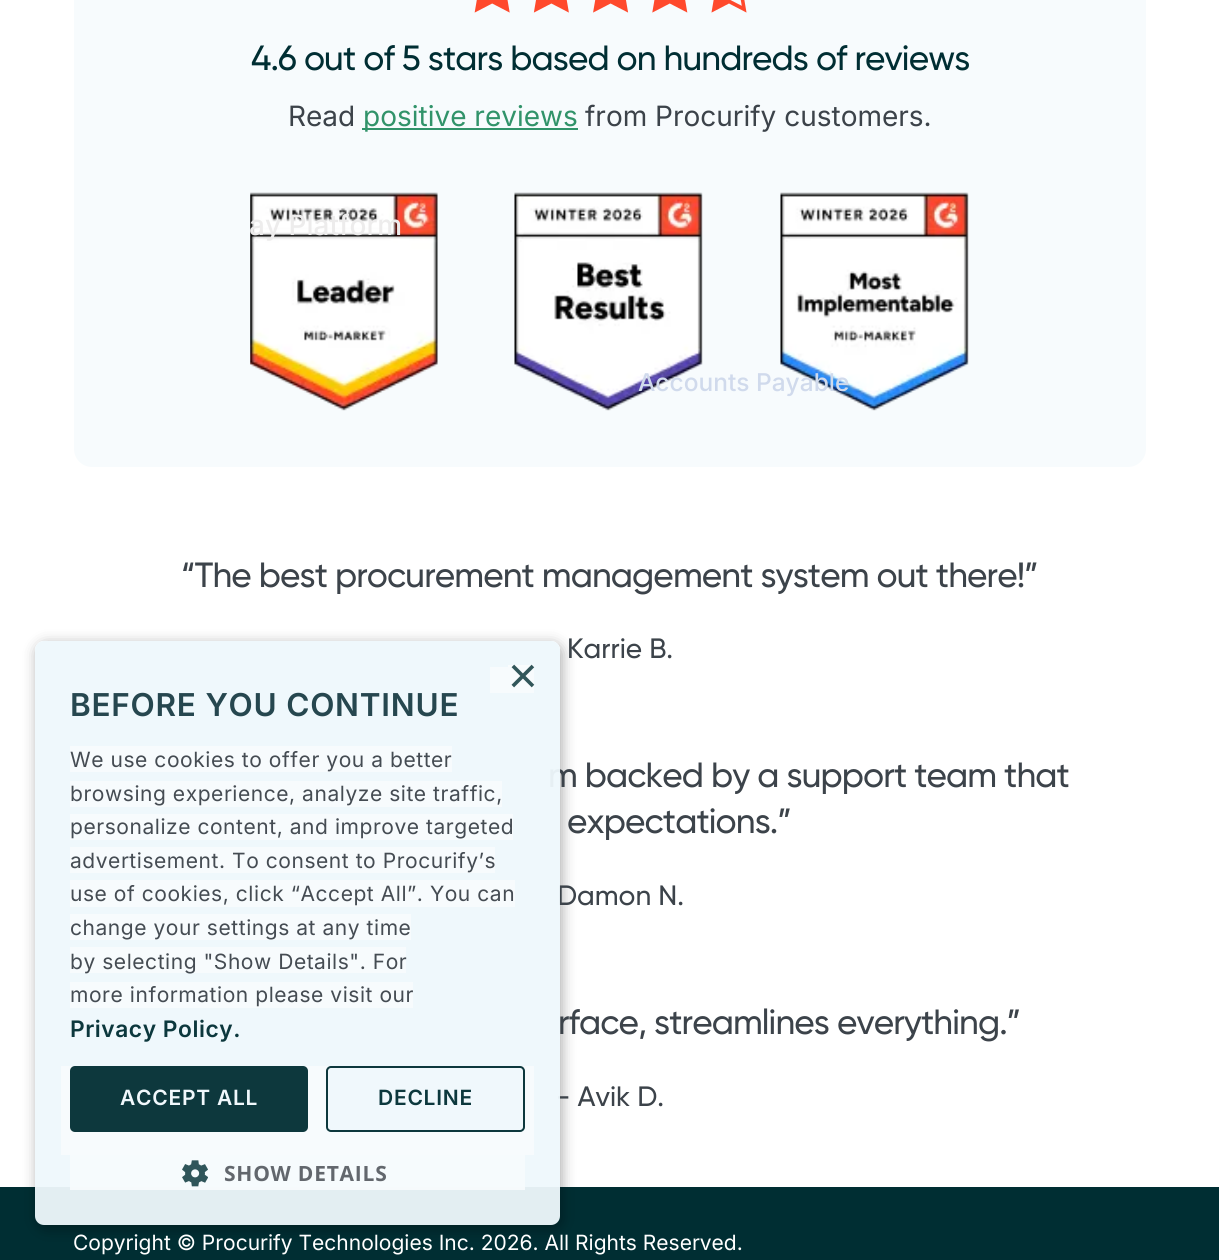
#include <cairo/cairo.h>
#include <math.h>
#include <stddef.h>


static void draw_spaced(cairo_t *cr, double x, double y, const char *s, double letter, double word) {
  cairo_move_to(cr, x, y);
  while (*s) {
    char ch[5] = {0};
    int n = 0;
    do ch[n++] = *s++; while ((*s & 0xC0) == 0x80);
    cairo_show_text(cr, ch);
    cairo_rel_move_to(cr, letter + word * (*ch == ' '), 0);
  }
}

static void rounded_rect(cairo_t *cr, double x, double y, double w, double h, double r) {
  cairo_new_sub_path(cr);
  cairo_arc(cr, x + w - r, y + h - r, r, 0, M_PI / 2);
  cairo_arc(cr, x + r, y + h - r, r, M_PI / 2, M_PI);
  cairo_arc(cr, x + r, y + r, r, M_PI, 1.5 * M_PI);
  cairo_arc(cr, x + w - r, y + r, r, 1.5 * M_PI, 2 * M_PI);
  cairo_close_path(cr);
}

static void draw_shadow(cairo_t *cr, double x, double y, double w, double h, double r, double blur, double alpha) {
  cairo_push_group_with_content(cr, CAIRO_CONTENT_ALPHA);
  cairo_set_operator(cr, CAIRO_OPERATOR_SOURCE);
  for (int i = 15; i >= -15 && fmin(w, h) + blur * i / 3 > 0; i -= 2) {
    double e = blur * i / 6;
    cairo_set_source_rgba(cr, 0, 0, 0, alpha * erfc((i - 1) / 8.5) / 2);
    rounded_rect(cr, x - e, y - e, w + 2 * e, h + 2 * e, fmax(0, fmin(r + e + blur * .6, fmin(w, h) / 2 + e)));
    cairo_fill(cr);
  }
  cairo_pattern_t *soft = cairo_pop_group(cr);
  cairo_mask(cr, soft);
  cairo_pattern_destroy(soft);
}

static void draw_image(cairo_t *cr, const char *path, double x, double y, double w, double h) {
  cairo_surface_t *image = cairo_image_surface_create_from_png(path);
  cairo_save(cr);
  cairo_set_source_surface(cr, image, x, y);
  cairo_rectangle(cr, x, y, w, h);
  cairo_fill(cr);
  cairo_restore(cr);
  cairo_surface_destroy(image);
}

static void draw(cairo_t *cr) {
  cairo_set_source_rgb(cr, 1, 1, 1);
  cairo_paint(cr);
  cairo_set_source_rgb(cr, 247 / 255.0, 251 / 255.0, 253 / 255.0);
  rounded_rect(cr, 74, -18, 1072, 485, 18);
  cairo_fill(cr);
  draw_image(cr, "images/1.png", 474, 0, 273, 13);
  cairo_set_source_rgb(cr, 49 / 255.0, 147 / 255.0, 106 / 255.0);
  cairo_rectangle(cr, 362, 128, 216, 2);
  cairo_fill(cr);
  draw_image(cr, "images/2.png", 250, 192, 719, 219);
  cairo_set_source_rgb(cr, 0, 46 / 255.0, 51 / 255.0);
  cairo_rectangle(cr, 0, 1187, 1219, 73);
  cairo_fill(cr);
  cairo_save(cr);
  cairo_set_fill_rule(cr, CAIRO_FILL_RULE_EVEN_ODD);
  cairo_new_path(cr);
  cairo_move_to(cr, 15, 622);
  cairo_line_to(cr, 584, 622);
  cairo_line_to(cr, 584, 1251);
  cairo_line_to(cr, 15, 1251);
  cairo_close_path(cr);
  cairo_move_to(cr, 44, 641);
  cairo_line_to(cr, 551, 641);
  cairo_curve_to(cr, 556, 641, 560, 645, 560, 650);
  cairo_line_to(cr, 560, 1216);
  cairo_curve_to(cr, 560, 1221, 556, 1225, 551, 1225);
  cairo_line_to(cr, 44, 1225);
  cairo_curve_to(cr, 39, 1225, 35, 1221, 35, 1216);
  cairo_line_to(cr, 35, 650);
  cairo_curve_to(cr, 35, 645, 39, 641, 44, 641);
  cairo_close_path(cr);
  cairo_clip(cr);
  cairo_set_source_rgb(cr, 0, 0, 0);
  draw_shadow(cr, 37, 644, 525, 585, 9, 7, 0.33);
  cairo_restore(cr);
  cairo_select_font_face(cr, "Gilroy Medium", CAIRO_FONT_SLANT_NORMAL, CAIRO_FONT_WEIGHT_NORMAL);
  cairo_set_font_size(cr, 35);
  draw_spaced(cr, 251, 70, "4.6 out of 5 stars based on hundreds of reviews", -0.87, 0);
  cairo_select_font_face(cr, "Inter", CAIRO_FONT_SLANT_NORMAL, CAIRO_FONT_WEIGHT_NORMAL);
  cairo_set_font_size(cr, 28);
  cairo_set_source_rgb(cr, 60 / 255.0, 67 / 255.0, 74 / 255.0);
  cairo_move_to(cr, 288, 126);
  cairo_show_text(cr, "Read");
  cairo_set_source_rgb(cr, 49 / 255.0, 147 / 255.0, 106 / 255.0);
  cairo_move_to(cr, 363, 126);
  cairo_show_text(cr, "positive reviews");
  cairo_set_source_rgb(cr, 60 / 255.0, 67 / 255.0, 74 / 255.0);
  cairo_move_to(cr, 585, 126);
  cairo_show_text(cr, "from Procurify customers.");
  cairo_select_font_face(cr, "Gilroy Medium", CAIRO_FONT_SLANT_NORMAL, CAIRO_FONT_WEIGHT_NORMAL);
  cairo_set_font_size(cr, 35);
  draw_spaced(cr, 181, 587, "“The best procurement management system out there!”", -0.87, 0);
  cairo_set_font_size(cr, 28);
  cairo_move_to(cr, 567, 658);
  cairo_show_text(cr, "Karrie B.");
  cairo_set_font_size(cr, 35);
  draw_spaced(cr, 548, 787, "m backed by a support team that", -0.87, 0);
  draw_spaced(cr, 567, 833, "expectations.”", -0.87, 0);
  cairo_set_font_size(cr, 28);
  cairo_move_to(cr, 557, 905);
  cairo_show_text(cr, "Damon N.");
  cairo_set_font_size(cr, 35);
  draw_spaced(cr, 558, 1034, "rface, streamlines everything.”", -0.87, 0);
  cairo_set_font_size(cr, 28);
  cairo_move_to(cr, 556, 1106);
  cairo_show_text(cr, "- Avik D.");
  cairo_select_font_face(cr, "Inter Medium", CAIRO_FONT_SLANT_NORMAL, CAIRO_FONT_WEIGHT_NORMAL);
  cairo_set_source_rgb(cr, 237 / 255.0, 236 / 255.0, 236 / 255.0);
  cairo_move_to(cr, 249, 235);
  cairo_show_text(cr, "ay Platform");
  cairo_set_font_size(cr, 24.5);
  cairo_set_source_rgb(cr, 208 / 255.0, 218 / 255.0, 236 / 255.0);
  cairo_move_to(cr, 638, 391);
  cairo_show_text(cr, "Accounts Payable");
  cairo_select_font_face(cr, "Inter", CAIRO_FONT_SLANT_NORMAL, CAIRO_FONT_WEIGHT_NORMAL);
  cairo_set_font_size(cr, 21);
  cairo_set_source_rgb(cr, 1, 1, 1);
  cairo_move_to(cr, 73, 1250);
  cairo_show_text(cr, "Copyright © Procurify Technologies Inc. 2026. All Rights Reserved.");
  cairo_set_source_rgba(cr, 239 / 255.0, 248 / 255.0, 252 / 255.0, 0.95);
  rounded_rect(cr, 35, 641, 525, 584, 9);
  cairo_fill(cr);
  cairo_set_source_rgb(cr, 247 / 255.0, 251 / 255.0, 253 / 255.0);
  cairo_rectangle(cr, 490, 667, 44, 26);
  cairo_fill(cr);
  cairo_set_source_rgb(cr, 249 / 255.0, 252 / 255.0, 253 / 255.0);
  cairo_rectangle(cr, 508, 665, 26, 2);
  cairo_fill(cr);
  cairo_select_font_face(cr, "Liberation Sans", CAIRO_FONT_SLANT_NORMAL, CAIRO_FONT_WEIGHT_NORMAL);
  cairo_set_font_size(cr, 51);
  cairo_set_source_rgb(cr, 49 / 255.0, 86 / 255.0, 90 / 255.0);
  cairo_move_to(cr, 508, 693);
  cairo_show_text(cr, "×");
  cairo_select_font_face(cr, "Inter SemiBold", CAIRO_FONT_SLANT_NORMAL, CAIRO_FONT_WEIGHT_NORMAL);
  cairo_set_font_size(cr, 31.5);
  cairo_set_source_rgb(cr, 38 / 255.0, 71 / 255.0, 79 / 255.0);
  draw_spaced(cr, 70, 716, "BEFORE YOU CONTINUE", 0.75, 0);
  cairo_set_source_rgb(cr, 247 / 255.0, 251 / 255.0, 253 / 255.0);
  cairo_rectangle(cr, 70, 746, 382, 26);
  cairo_fill(cr);
  cairo_select_font_face(cr, "Inter", CAIRO_FONT_SLANT_NORMAL, CAIRO_FONT_WEIGHT_NORMAL);
  cairo_set_font_size(cr, 21);
  cairo_set_source_rgb(cr, 69 / 255.0, 76 / 255.0, 83 / 255.0);
  draw_spaced(cr, 70, 767, "We use cookies to offer you a better", 0.55, 0);
  cairo_set_source_rgb(cr, 247 / 255.0, 251 / 255.0, 253 / 255.0);
  cairo_rectangle(cr, 70, 781, 432, 26);
  cairo_fill(cr);
  cairo_set_source_rgb(cr, 69 / 255.0, 76 / 255.0, 83 / 255.0);
  draw_spaced(cr, 70, 801, "browsing experience, analyze site traffic,", 0.55, 0);
  cairo_set_source_rgb(cr, 247 / 255.0, 251 / 255.0, 253 / 255.0);
  cairo_rectangle(cr, 70, 814, 443, 26);
  cairo_fill(cr);
  cairo_set_source_rgb(cr, 69 / 255.0, 76 / 255.0, 83 / 255.0);
  draw_spaced(cr, 70, 834, "personalize content, and improve targeted", 0.55, 0);
  cairo_set_source_rgb(cr, 247 / 255.0, 251 / 255.0, 253 / 255.0);
  cairo_rectangle(cr, 70, 847, 425, 26);
  cairo_fill(cr);
  cairo_set_source_rgb(cr, 69 / 255.0, 76 / 255.0, 83 / 255.0);
  draw_spaced(cr, 70, 868, "advertisement. To consent to Procurify’s", 0.55, 0);
  cairo_set_source_rgb(cr, 247 / 255.0, 251 / 255.0, 253 / 255.0);
  cairo_rectangle(cr, 70, 880, 445, 27);
  cairo_fill(cr);
  cairo_set_source_rgb(cr, 69 / 255.0, 76 / 255.0, 83 / 255.0);
  draw_spaced(cr, 70, 901, "use of cookies, click “Accept All”. You can", 0.55, 0);
  cairo_set_source_rgb(cr, 247 / 255.0, 251 / 255.0, 253 / 255.0);
  cairo_rectangle(cr, 70, 914, 341, 26);
  cairo_fill(cr);
  cairo_set_source_rgb(cr, 69 / 255.0, 76 / 255.0, 83 / 255.0);
  draw_spaced(cr, 70, 935, "change your settings at any time", 0.55, 0);
  cairo_set_source_rgb(cr, 247 / 255.0, 251 / 255.0, 253 / 255.0);
  cairo_rectangle(cr, 70, 947, 336, 26);
  cairo_fill(cr);
  cairo_set_source_rgb(cr, 69 / 255.0, 76 / 255.0, 83 / 255.0);
  draw_spaced(cr, 70, 969, "by selecting \"Show Details\". For", 0.55, 0);
  cairo_set_source_rgb(cr, 247 / 255.0, 251 / 255.0, 253 / 255.0);
  cairo_rectangle(cr, 70, 982, 343, 26);
  cairo_fill(cr);
  cairo_set_source_rgb(cr, 69 / 255.0, 76 / 255.0, 83 / 255.0);
  draw_spaced(cr, 70, 1002, "more information please visit our", 0.55, 0);
  cairo_select_font_face(cr, "Inter SemiBold", CAIRO_FONT_SLANT_NORMAL, CAIRO_FONT_WEIGHT_NORMAL);
  cairo_set_font_size(cr, 22.75);
  cairo_set_source_rgb(cr, 12 / 255.0, 56 / 255.0, 61 / 255.0);
  draw_spaced(cr, 70, 1037, "Privacy Policy.", 0.55, 0);
  cairo_set_source_rgb(cr, 247 / 255.0, 251 / 255.0, 253 / 255.0);
  cairo_rectangle(cr, 61, 1066, 473, 89);
  cairo_fill(cr);
  cairo_set_source_rgb(cr, 13 / 255.0, 56 / 255.0, 61 / 255.0);
  rounded_rect(cr, 70, 1066, 238, 66, 5);
  cairo_fill(cr);
  cairo_set_font_size(cr, 21);
  cairo_set_source_rgb(cr, 240 / 255.0, 248 / 255.0, 252 / 255.0);
  draw_spaced(cr, 120, 1105, "ACCEPT ALL", 0.75, 0);
  rounded_rect(cr, 327, 1067, 197, 64, 4);
  cairo_fill_preserve(cr);
  cairo_set_source_rgb(cr, 13 / 255.0, 56 / 255.0, 61 / 255.0);
  cairo_stroke(cr);
  cairo_set_source_rgb(cr, 12 / 255.0, 56 / 255.0, 61 / 255.0);
  draw_spaced(cr, 378, 1105, "DECLINE", 0.75, 0);
  cairo_set_source_rgba(cr, 247 / 255.0, 251 / 255.0, 253 / 255.0, 0.95);
  cairo_rectangle(cr, 70, 1155, 455, 35);
  cairo_fill(cr);
  draw_image(cr, "images/3.png", 182, 1160, 26, 27);
  cairo_select_font_face(cr, "Open Sans", CAIRO_FONT_SLANT_NORMAL, CAIRO_FONT_WEIGHT_BOLD);
  cairo_set_source_rgb(cr, 98 / 255.0, 103 / 255.0, 109 / 255.0);
  draw_spaced(cr, 224, 1181, "SHOW DETAILS", 0.75, 0);
}

int main(void) {
  cairo_surface_t *surface = cairo_image_surface_create(CAIRO_FORMAT_RGB24, 1219, 1260);
  cairo_t *cr = cairo_create(surface);
  cairo_font_options_t *options = cairo_font_options_create();
  cairo_font_options_set_hint_metrics(options, CAIRO_HINT_METRICS_OFF);
  cairo_font_options_set_hint_style(options, CAIRO_HINT_STYLE_NONE);
  cairo_set_font_options(cr, options);
  cairo_set_miter_limit(cr, 4);
  draw(cr);
  cairo_surface_write_to_png(surface, "out.png");
  cairo_font_options_destroy(options);
  cairo_destroy(cr);
  cairo_surface_destroy(surface);
  return 0;
}
